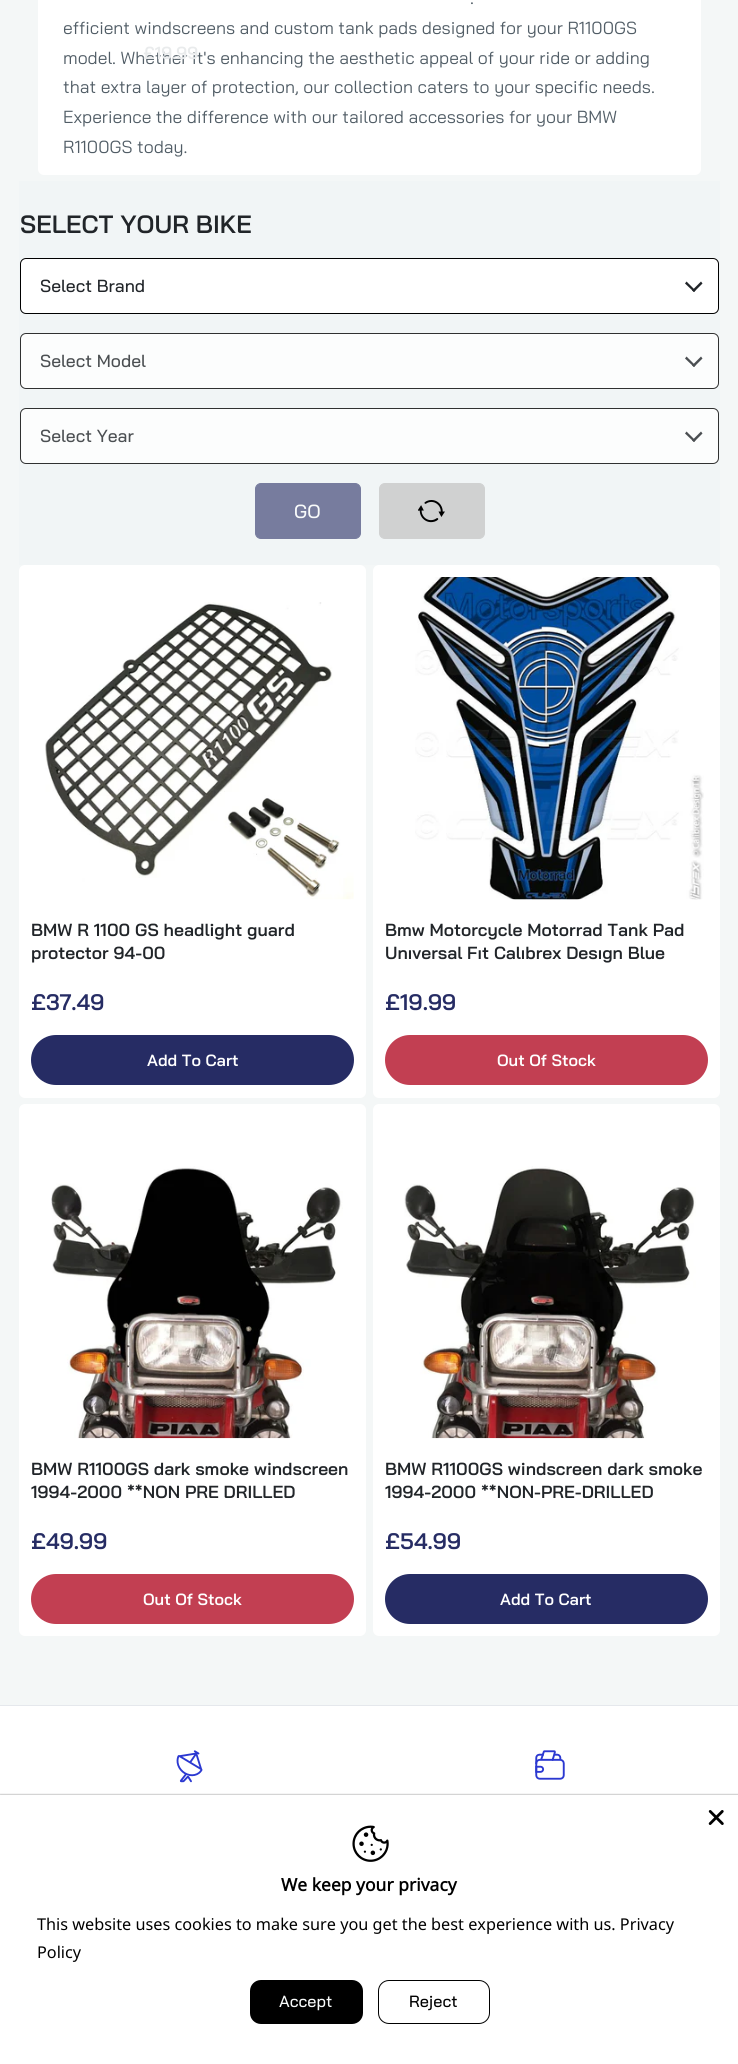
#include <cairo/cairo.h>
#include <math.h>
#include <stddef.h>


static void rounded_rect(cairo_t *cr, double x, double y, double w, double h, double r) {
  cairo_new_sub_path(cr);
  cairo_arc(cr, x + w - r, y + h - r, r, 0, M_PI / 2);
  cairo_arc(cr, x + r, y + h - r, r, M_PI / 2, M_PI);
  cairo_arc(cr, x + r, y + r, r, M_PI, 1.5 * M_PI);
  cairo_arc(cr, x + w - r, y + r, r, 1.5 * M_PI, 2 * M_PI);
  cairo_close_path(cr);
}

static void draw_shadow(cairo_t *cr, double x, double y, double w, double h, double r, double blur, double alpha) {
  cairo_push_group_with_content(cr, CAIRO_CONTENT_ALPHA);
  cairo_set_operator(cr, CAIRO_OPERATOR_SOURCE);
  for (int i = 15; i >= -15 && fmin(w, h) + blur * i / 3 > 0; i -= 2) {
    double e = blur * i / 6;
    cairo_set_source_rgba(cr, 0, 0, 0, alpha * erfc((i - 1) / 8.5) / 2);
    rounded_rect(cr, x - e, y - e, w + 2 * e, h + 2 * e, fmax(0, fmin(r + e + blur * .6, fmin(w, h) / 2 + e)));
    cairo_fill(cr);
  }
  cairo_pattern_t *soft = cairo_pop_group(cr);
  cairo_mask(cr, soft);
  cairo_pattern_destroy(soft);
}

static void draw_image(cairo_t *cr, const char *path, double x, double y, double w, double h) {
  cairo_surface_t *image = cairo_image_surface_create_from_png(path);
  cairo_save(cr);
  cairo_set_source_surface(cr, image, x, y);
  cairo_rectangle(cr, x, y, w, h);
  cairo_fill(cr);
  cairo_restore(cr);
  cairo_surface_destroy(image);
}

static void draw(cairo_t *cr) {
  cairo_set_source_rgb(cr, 244 / 255.0, 247 / 255.0, 247 / 255.0);
  cairo_paint(cr);
  cairo_set_source_rgb(cr, 1, 1, 1);
  rounded_rect(cr, 38, -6, 663, 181, 6);
  cairo_fill(cr);
  cairo_set_source_rgb(cr, 241 / 255.0, 245 / 255.0, 246 / 255.0);
  cairo_rectangle(cr, 19, 181, 701, 384);
  cairo_fill(cr);
  cairo_set_source_rgb(cr, 1, 1, 1);
  rounded_rect(cr, 20.5, 258.5, 698, 55, 5.5);
  cairo_fill_preserve(cr);
  cairo_set_source_rgb(cr, 0, 0, 0);
  cairo_set_line_width(cr, 1);
  cairo_stroke(cr);
  cairo_set_source_rgb(cr, 33 / 255.0, 37 / 255.0, 41 / 255.0);
  cairo_new_path(cr);
  cairo_move_to(cr, 701, 281.5);
  cairo_line_to(cr, 702.5, 283.5);
  cairo_line_to(cr, 694, 292);
  cairo_line_to(cr, 692, 290.5);
  cairo_close_path(cr);
  cairo_fill(cr);
  cairo_new_path(cr);
  cairo_move_to(cr, 686.5, 281.5);
  cairo_line_to(cr, 695.5, 290.5);
  cairo_line_to(cr, 694, 292);
  cairo_line_to(cr, 685, 283.5);
  cairo_close_path(cr);
  cairo_fill(cr);
  cairo_set_source_rgb(cr, 252 / 255.0, 253 / 255.0, 253 / 255.0);
  rounded_rect(cr, 20.5, 333.5, 698, 55, 5.5);
  cairo_fill_preserve(cr);
  cairo_set_source_rgb(cr, 48 / 255.0, 49 / 255.0, 49 / 255.0);
  cairo_stroke(cr);
  cairo_set_source_rgb(cr, 75 / 255.0, 79 / 255.0, 82 / 255.0);
  cairo_new_path(cr);
  cairo_move_to(cr, 701, 356.5);
  cairo_line_to(cr, 702.5, 358.5);
  cairo_line_to(cr, 694, 367);
  cairo_line_to(cr, 692, 365.5);
  cairo_close_path(cr);
  cairo_fill(cr);
  cairo_new_path(cr);
  cairo_move_to(cr, 686.5, 356.5);
  cairo_line_to(cr, 695.5, 365.5);
  cairo_line_to(cr, 694, 367);
  cairo_line_to(cr, 685, 358.5);
  cairo_close_path(cr);
  cairo_fill(cr);
  cairo_set_source_rgb(cr, 252 / 255.0, 253 / 255.0, 253 / 255.0);
  rounded_rect(cr, 20.5, 408.5, 698, 55, 5.5);
  cairo_fill_preserve(cr);
  cairo_set_source_rgb(cr, 48 / 255.0, 49 / 255.0, 49 / 255.0);
  cairo_stroke(cr);
  cairo_set_source_rgb(cr, 75 / 255.0, 79 / 255.0, 82 / 255.0);
  cairo_new_path(cr);
  cairo_move_to(cr, 701, 431.5);
  cairo_line_to(cr, 702.5, 433.5);
  cairo_line_to(cr, 694, 442);
  cairo_line_to(cr, 692, 440.5);
  cairo_close_path(cr);
  cairo_fill(cr);
  cairo_new_path(cr);
  cairo_move_to(cr, 686.5, 431.5);
  cairo_line_to(cr, 695.5, 440.5);
  cairo_line_to(cr, 694, 442);
  cairo_line_to(cr, 685, 433.5);
  cairo_close_path(cr);
  cairo_fill(cr);
  cairo_set_source_rgb(cr, 119 / 255.0, 124 / 255.0, 158 / 255.0);
  rounded_rect(cr, 255.5, 483.5, 105, 55, 5.5);
  cairo_fill_preserve(cr);
  cairo_stroke(cr);
  cairo_set_source_rgb(cr, 208 / 255.0, 209 / 255.0, 209 / 255.0);
  rounded_rect(cr, 379.5, 483.5, 105, 55, 5.5);
  cairo_fill_preserve(cr);
  cairo_stroke(cr);
  draw_image(cr, "images/1.png", 418, 500, 27, 23);
  cairo_set_source_rgb(cr, 1, 1, 1);
  rounded_rect(cr, 19, 565, 347, 533, 6);
  cairo_fill(cr);
  draw_image(cr, "images/2.png", 45, 602, 309, 298);
  cairo_set_source_rgb(cr, 38 / 255.0, 44 / 255.0, 100 / 255.0);
  rounded_rect(cr, 31, 1035, 323, 50, 25);
  cairo_fill(cr);
  cairo_set_source_rgb(cr, 1, 1, 1);
  rounded_rect(cr, 373, 565, 347, 533, 6);
  cairo_fill(cr);
  draw_image(cr, "images/3.png", 415, 577, 289, 323);
  cairo_set_source_rgb(cr, 194 / 255.0, 63 / 255.0, 82 / 255.0);
  rounded_rect(cr, 385, 1035, 323, 50, 25);
  cairo_fill(cr);
  cairo_set_source_rgb(cr, 1, 1, 1);
  rounded_rect(cr, 19, 1104, 347, 532, 6);
  cairo_fill(cr);
  draw_image(cr, "images/4.png", 51, 1166, 292, 273);
  cairo_set_source_rgb(cr, 194 / 255.0, 63 / 255.0, 82 / 255.0);
  rounded_rect(cr, 31, 1574, 323, 50, 25);
  cairo_fill(cr);
  cairo_set_source_rgb(cr, 1, 1, 1);
  rounded_rect(cr, 373, 1104, 347, 532, 6);
  cairo_fill(cr);
  draw_image(cr, "images/5.png", 404, 1166, 292, 273);
  cairo_set_source_rgb(cr, 38 / 255.0, 44 / 255.0, 100 / 255.0);
  rounded_rect(cr, 385, 1574, 323, 50, 25);
  cairo_fill(cr);
  cairo_set_source_rgb(cr, 1, 1, 1);
  cairo_rectangle(cr, 0, 1706, 738, 89);
  cairo_fill(cr);
  cairo_set_source_rgb(cr, 229 / 255.0, 232 / 255.0, 236 / 255.0);
  cairo_rectangle(cr, 0, 1705, 738, 1);
  cairo_fill(cr);
  draw_image(cr, "images/6.png", 176, 1750, 27, 33);
  draw_image(cr, "images/7.png", 535, 1750, 30, 30);
  cairo_set_source_rgb(cr, 0, 0, 0);
  draw_shadow(cr, 0, 1795, 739, 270, 0, 1, 0.5);
  cairo_set_source_rgb(cr, 1, 1, 1);
  cairo_rectangle(cr, 0, 1795, 738, 269);
  cairo_fill(cr);
  draw_image(cr, "images/8.png", 708, 1810, 16, 15);
  draw_image(cr, "images/9.png", 352, 1825, 37, 37);
  cairo_set_source_rgb(cr, 0, 0, 0);
  rounded_rect(cr, 250, 1980, 113, 44, 11);
  cairo_fill(cr);
  rounded_rect(cr, 378.5, 1980.5, 111, 43, 10.5);
  cairo_stroke(cr);
  cairo_select_font_face(cr, "Bai Jamjuree", CAIRO_FONT_SLANT_NORMAL, CAIRO_FONT_WEIGHT_NORMAL);
  cairo_set_font_size(cr, 17.5);
  cairo_set_source_rgb(cr, 81 / 255.0, 93 / 255.0, 102 / 255.0);
  cairo_move_to(cr, 470, 4);
  cairo_show_text(cr, ".");
  cairo_move_to(cr, 63, 34);
  cairo_show_text(cr, "efficient windscreens and custom tank pads designed for your R1100GS");
  cairo_move_to(cr, 63, 64);
  cairo_show_text(cr, "model. Whether it's enhancing the aesthetic appeal of your ride or adding");
  cairo_move_to(cr, 63, 93);
  cairo_show_text(cr, "that extra layer of protection, our collection caters to your specific needs.");
  cairo_move_to(cr, 63, 123);
  cairo_show_text(cr, "Experience the difference with our tailored accessories for your BMW");
  cairo_move_to(cr, 63, 153);
  cairo_show_text(cr, "R1100GS today.");
  cairo_select_font_face(cr, "Bai Jamjuree SemiBold", CAIRO_FONT_SLANT_NORMAL, CAIRO_FONT_WEIGHT_NORMAL);
  cairo_set_font_size(cr, 25);
  cairo_set_source_rgb(cr, 33 / 255.0, 37 / 255.0, 41 / 255.0);
  cairo_move_to(cr, 20, 233);
  cairo_show_text(cr, "SELECT YOUR BIKE");
  cairo_select_font_face(cr, "Bai Jamjuree Medium", CAIRO_FONT_SLANT_NORMAL, CAIRO_FONT_WEIGHT_NORMAL);
  cairo_set_font_size(cr, 17.5);
  cairo_move_to(cr, 40, 292);
  cairo_show_text(cr, "Select Brand");
  cairo_set_source_rgb(cr, 75 / 255.0, 79 / 255.0, 82 / 255.0);
  cairo_move_to(cr, 40, 367);
  cairo_show_text(cr, "Select Model");
  cairo_move_to(cr, 40, 442);
  cairo_show_text(cr, "Select Year");
  cairo_set_font_size(cr, 19);
  cairo_set_source_rgb(cr, 249 / 255.0, 251 / 255.0, 251 / 255.0);
  cairo_move_to(cr, 294, 518);
  cairo_show_text(cr, "GO");
  cairo_select_font_face(cr, "Bai Jamjuree SemiBold", CAIRO_FONT_SLANT_NORMAL, CAIRO_FONT_WEIGHT_NORMAL);
  cairo_set_font_size(cr, 17.5);
  cairo_set_source_rgb(cr, 33 / 255.0, 37 / 255.0, 41 / 255.0);
  cairo_move_to(cr, 31, 936);
  cairo_show_text(cr, "BMW R 1100 GS headlight guard");
  cairo_move_to(cr, 31, 959);
  cairo_show_text(cr, "protector 94-00");
  cairo_set_font_size(cr, 22.5);
  cairo_set_source_rgb(cr, 38 / 255.0, 44 / 255.0, 100 / 255.0);
  cairo_move_to(cr, 31, 1010);
  cairo_show_text(cr, "£37.49");
  cairo_set_font_size(cr, 16.25);
  cairo_set_source_rgb(cr, 1, 1, 1);
  cairo_move_to(cr, 147, 1066);
  cairo_show_text(cr, "Add To Cart");
  cairo_set_font_size(cr, 17.5);
  cairo_set_source_rgb(cr, 33 / 255.0, 37 / 255.0, 41 / 255.0);
  cairo_move_to(cr, 385, 936);
  cairo_show_text(cr, "Bmw Motorcycle Motorrad Tank Pad");
  cairo_move_to(cr, 385, 959);
  cairo_show_text(cr, "Unıversal Fıt Calıbrex Desıgn Blue");
  cairo_set_font_size(cr, 22.5);
  cairo_set_source_rgb(cr, 38 / 255.0, 44 / 255.0, 100 / 255.0);
  cairo_move_to(cr, 385, 1010);
  cairo_show_text(cr, "£19.99");
  cairo_set_font_size(cr, 16.25);
  cairo_set_source_rgb(cr, 1, 1, 1);
  cairo_move_to(cr, 497, 1066);
  cairo_show_text(cr, "Out Of Stock");
  cairo_set_font_size(cr, 17.5);
  cairo_set_source_rgb(cr, 33 / 255.0, 37 / 255.0, 41 / 255.0);
  cairo_move_to(cr, 31, 1475);
  cairo_show_text(cr, "BMW R1100GS dark smoke windscreen");
  cairo_move_to(cr, 31, 1498);
  cairo_show_text(cr, "1994-2000 **NON PRE DRILLED");
  cairo_set_font_size(cr, 22.5);
  cairo_set_source_rgb(cr, 38 / 255.0, 44 / 255.0, 100 / 255.0);
  cairo_move_to(cr, 31, 1549);
  cairo_show_text(cr, "£49.99");
  cairo_set_font_size(cr, 16.25);
  cairo_set_source_rgb(cr, 1, 1, 1);
  cairo_move_to(cr, 143, 1605);
  cairo_show_text(cr, "Out Of Stock");
  cairo_set_font_size(cr, 17.5);
  cairo_set_source_rgb(cr, 33 / 255.0, 37 / 255.0, 41 / 255.0);
  cairo_move_to(cr, 385, 1475);
  cairo_show_text(cr, "BMW R1100GS windscreen dark smoke");
  cairo_move_to(cr, 385, 1498);
  cairo_show_text(cr, "1994-2000 **NON-PRE-DRILLED");
  cairo_set_font_size(cr, 22.5);
  cairo_set_source_rgb(cr, 38 / 255.0, 44 / 255.0, 100 / 255.0);
  cairo_move_to(cr, 385, 1549);
  cairo_show_text(cr, "£54.99");
  cairo_set_font_size(cr, 16.25);
  cairo_set_source_rgb(cr, 1, 1, 1);
  cairo_move_to(cr, 500, 1605);
  cairo_show_text(cr, "Add To Cart");
  cairo_set_font_size(cr, 17.5);
  cairo_set_source_rgb(cr, 233 / 255.0, 235 / 255.0, 236 / 255.0);
  cairo_move_to(cr, 143, 59);
  cairo_show_text(cr, "£19.99");
  cairo_select_font_face(cr, "Noto Sans", CAIRO_FONT_SLANT_NORMAL, CAIRO_FONT_WEIGHT_BOLD);
  cairo_set_source_rgb(cr, 0, 0, 0);
  cairo_move_to(cr, 281, 1891);
  cairo_show_text(cr, "We keep your privacy");
  cairo_select_font_face(cr, "Noto Sans", CAIRO_FONT_SLANT_NORMAL, CAIRO_FONT_WEIGHT_NORMAL);
  cairo_set_font_size(cr, 16.25);
  cairo_move_to(cr, 37, 1930);
  cairo_show_text(cr, "This website uses cookies to make sure you get the best experience with us. Privacy");
  cairo_move_to(cr, 37, 1958);
  cairo_show_text(cr, "Policy");
  cairo_select_font_face(cr, "Bai Jamjuree Medium", CAIRO_FONT_SLANT_NORMAL, CAIRO_FONT_WEIGHT_NORMAL);
  cairo_set_source_rgb(cr, 249 / 255.0, 251 / 255.0, 251 / 255.0);
  cairo_move_to(cr, 279, 2007);
  cairo_show_text(cr, "Accept");
  cairo_set_source_rgb(cr, 0, 0, 0);
  cairo_move_to(cr, 409, 2007);
  cairo_show_text(cr, "Reject");
}

int main(void) {
  cairo_surface_t *surface = cairo_image_surface_create(CAIRO_FORMAT_RGB24, 738, 2064);
  cairo_t *cr = cairo_create(surface);
  cairo_font_options_t *options = cairo_font_options_create();
  cairo_font_options_set_hint_metrics(options, CAIRO_HINT_METRICS_OFF);
  cairo_font_options_set_hint_style(options, CAIRO_HINT_STYLE_NONE);
  cairo_set_font_options(cr, options);
  cairo_set_miter_limit(cr, 4);
  draw(cr);
  cairo_surface_write_to_png(surface, "out.png");
  cairo_font_options_destroy(options);
  cairo_destroy(cr);
  cairo_surface_destroy(surface);
  return 0;
}
